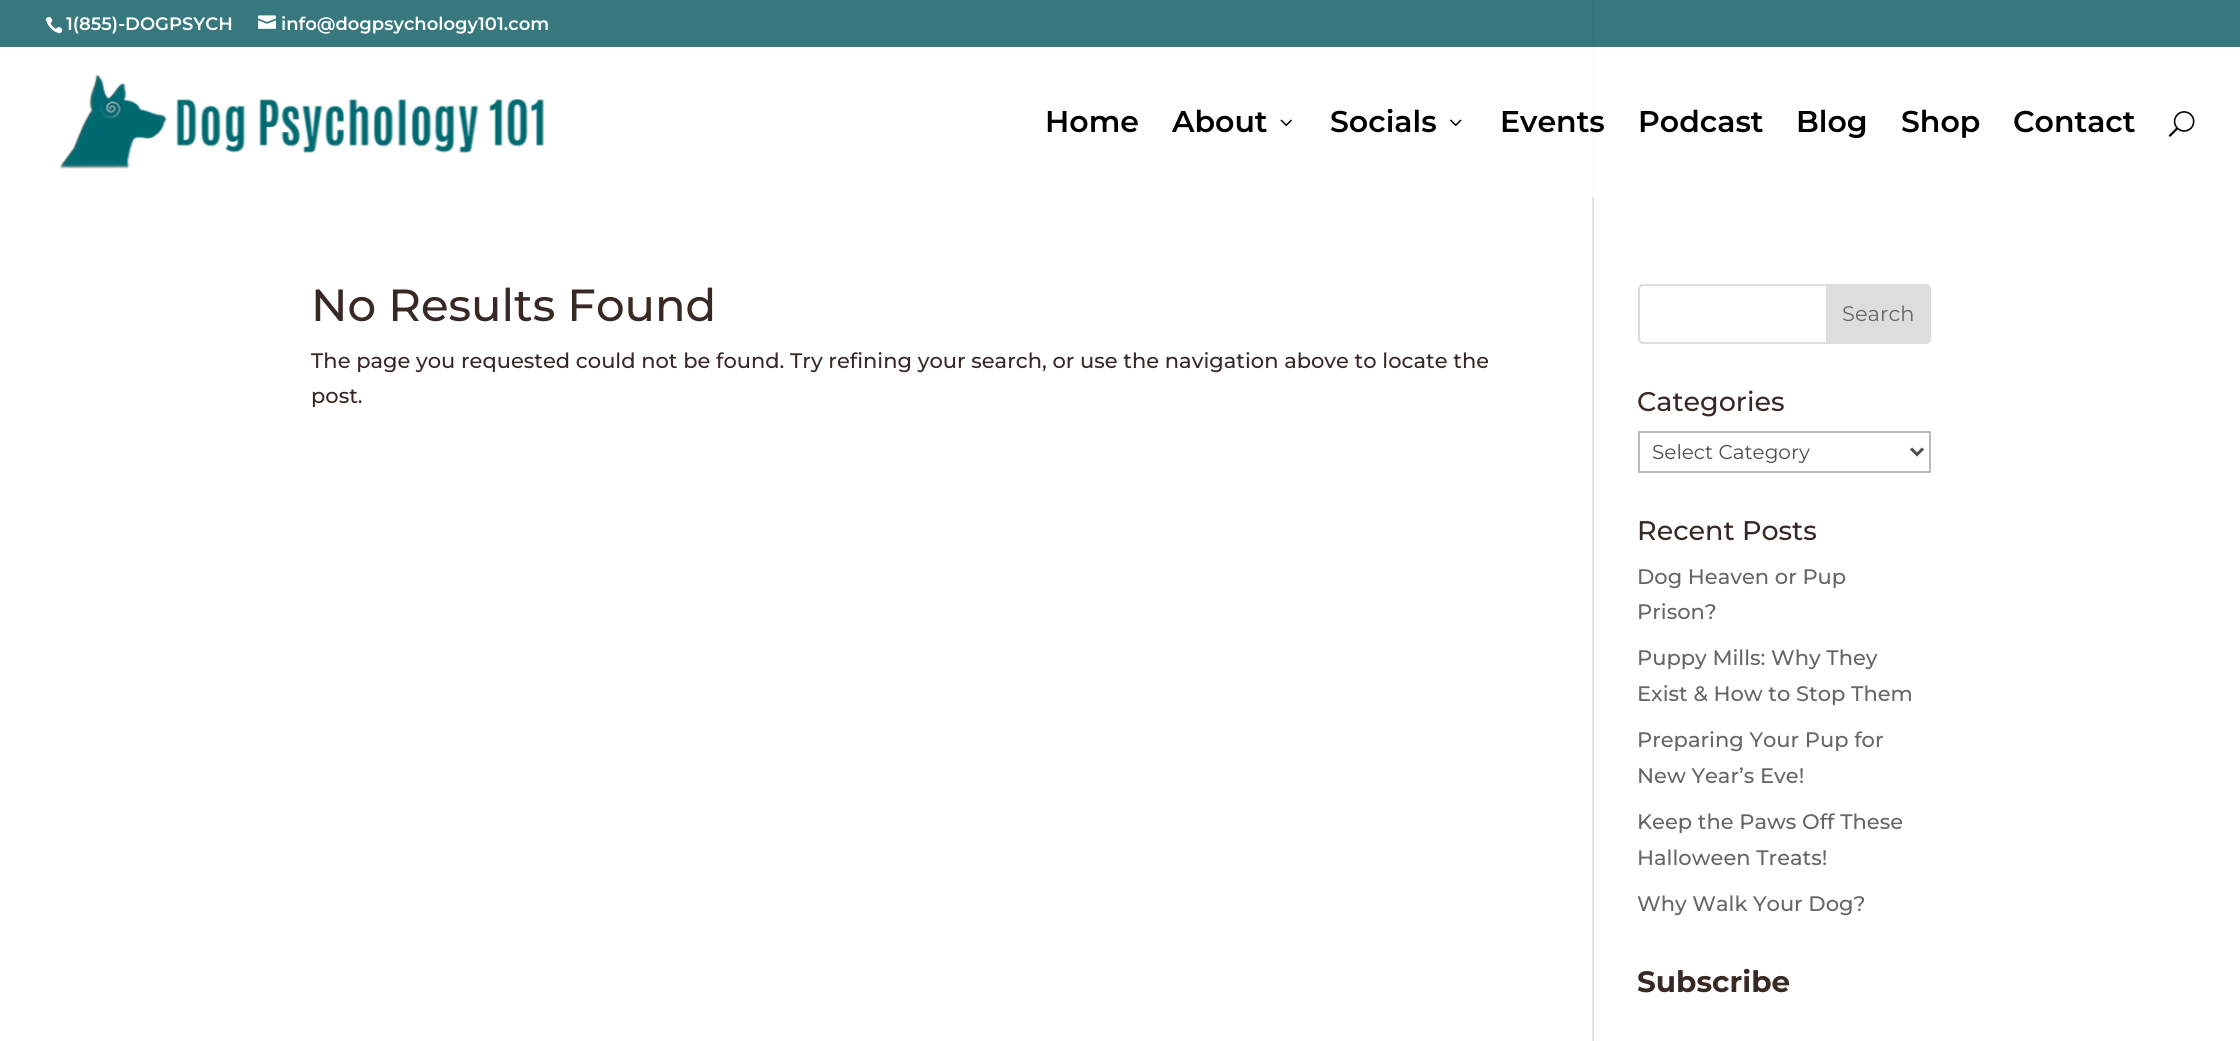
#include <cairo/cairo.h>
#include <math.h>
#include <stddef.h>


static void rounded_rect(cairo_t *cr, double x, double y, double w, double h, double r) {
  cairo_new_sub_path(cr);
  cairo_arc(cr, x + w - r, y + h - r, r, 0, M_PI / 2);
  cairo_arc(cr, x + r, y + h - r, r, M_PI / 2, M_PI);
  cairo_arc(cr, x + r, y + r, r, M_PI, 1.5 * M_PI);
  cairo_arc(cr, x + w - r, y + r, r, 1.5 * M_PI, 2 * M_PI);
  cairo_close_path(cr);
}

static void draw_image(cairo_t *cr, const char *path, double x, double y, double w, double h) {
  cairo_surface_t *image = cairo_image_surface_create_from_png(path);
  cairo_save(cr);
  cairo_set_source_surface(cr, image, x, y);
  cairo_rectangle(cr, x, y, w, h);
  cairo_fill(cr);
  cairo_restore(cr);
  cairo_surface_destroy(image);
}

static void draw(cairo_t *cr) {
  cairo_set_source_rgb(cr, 1, 1, 1);
  cairo_paint(cr);
  cairo_set_source_rgb(cr, 54 / 255.0, 120 / 255.0, 125 / 255.0);
  cairo_rectangle(cr, 0, 0, 2240, 47);
  cairo_fill(cr);
  draw_image(cr, "images/1.png", 45, 16, 18, 18);
  draw_image(cr, "images/2.png", 258, 15, 18, 14);
  draw_image(cr, "images/3.png", 59, 74, 486, 95);
  draw_image(cr, "images/4.png", 1280, 119, 12, 7);
  draw_image(cr, "images/5.png", 1450, 119, 12, 7);
  draw_image(cr, "images/6.png", 2168, 111, 27, 26);
  cairo_set_source_rgb(cr, 226 / 255.0, 226 / 255.0, 226 / 255.0);
  cairo_rectangle(cr, 1592, 197, 2, 844);
  cairo_fill(cr);
  cairo_set_source_rgb(cr, 50 / 255.0, 116 / 255.0, 121 / 255.0);
  cairo_rectangle(cr, 1592, 0, 2, 47);
  cairo_fill(cr);
  cairo_set_source_rgb(cr, 251 / 255.0, 251 / 255.0, 251 / 255.0);
  cairo_rectangle(cr, 1592, 47, 2, 150);
  cairo_fill(cr);
  rounded_rect(cr, 1639, 285, 291, 58, 4);
  cairo_set_source_rgb(cr, 221 / 255.0, 221 / 255.0, 221 / 255.0);
  cairo_stroke(cr);
  cairo_new_path(cr);
  cairo_move_to(cr, 1827, 285);
  cairo_line_to(cr, 1926, 285);
  cairo_curve_to(cr, 1928, 285, 1930, 287, 1930, 289);
  cairo_line_to(cr, 1930, 339);
  cairo_curve_to(cr, 1930, 341, 1928, 343, 1926, 343);
  cairo_line_to(cr, 1827, 343);
  cairo_close_path(cr);
  cairo_fill_preserve(cr);
  cairo_stroke(cr);
  cairo_rectangle(cr, 1639, 432, 291, 40);
  cairo_set_source_rgb(cr, 187 / 255.0, 187 / 255.0, 187 / 255.0);
  cairo_stroke(cr);
  cairo_new_path(cr);
  cairo_move_to(cr, 1911, 448.5);
  cairo_line_to(cr, 1917, 454.5);
  cairo_line_to(cr, 1923, 448.5);
  cairo_set_source_rgb(cr, 78 / 255.0, 78 / 255.0, 78 / 255.0);
  cairo_set_line_width(cr, 3);
  cairo_stroke(cr);
  cairo_select_font_face(cr, "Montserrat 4 Thin", CAIRO_FONT_SLANT_NORMAL, CAIRO_FONT_WEIGHT_NORMAL);
  cairo_set_font_size(cr, 18);
  cairo_set_source_rgb(cr, 1, 1, 1);
  cairo_move_to(cr, 66, 30);
  cairo_show_text(cr, "1(855)-DOGPSYCH");
  cairo_move_to(cr, 281, 30);
  cairo_show_text(cr, "info@dogpsychology101.com");
  cairo_set_font_size(cr, 30);
  cairo_set_source_rgb(cr, 0, 0, 0);
  cairo_move_to(cr, 1045, 132);
  cairo_show_text(cr, "Home");
  cairo_move_to(cr, 1172, 132);
  cairo_show_text(cr, "About");
  cairo_move_to(cr, 1330, 132);
  cairo_show_text(cr, "Socials");
  cairo_move_to(cr, 1500, 132);
  cairo_show_text(cr, "Events");
  cairo_move_to(cr, 1638, 132);
  cairo_show_text(cr, "Podcast");
  cairo_move_to(cr, 1796, 132);
  cairo_show_text(cr, "Blog");
  cairo_move_to(cr, 1901, 132);
  cairo_show_text(cr, "Shop");
  cairo_move_to(cr, 2013, 132);
  cairo_show_text(cr, "Contact");
  cairo_select_font_face(cr, "Montserrat Thin", CAIRO_FONT_SLANT_NORMAL, CAIRO_FONT_WEIGHT_NORMAL);
  cairo_set_font_size(cr, 45);
  cairo_set_source_rgb(cr, 56 / 255.0, 41 / 255.0, 36 / 255.0);
  cairo_move_to(cr, 311, 321);
  cairo_show_text(cr, "No Results Found");
  cairo_set_font_size(cr, 21);
  cairo_move_to(cr, 311, 368);
  cairo_show_text(cr, "The page you requested could not be found. Try refining your search, or use the navigation above to locate the");
  cairo_move_to(cr, 311, 403);
  cairo_show_text(cr, "post.");
  cairo_select_font_face(cr, "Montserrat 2 Thin", CAIRO_FONT_SLANT_NORMAL, CAIRO_FONT_WEIGHT_NORMAL);
  cairo_set_source_rgb(cr, 102 / 255.0, 102 / 255.0, 102 / 255.0);
  cairo_move_to(cr, 1842, 321);
  cairo_show_text(cr, "Search");
  cairo_select_font_face(cr, "Montserrat Thin", CAIRO_FONT_SLANT_NORMAL, CAIRO_FONT_WEIGHT_NORMAL);
  cairo_set_font_size(cr, 27);
  cairo_set_source_rgb(cr, 56 / 255.0, 41 / 255.0, 36 / 255.0);
  cairo_move_to(cr, 1637, 411);
  cairo_show_text(cr, "Categories");
  cairo_select_font_face(cr, "Montserrat 2 Thin", CAIRO_FONT_SLANT_NORMAL, CAIRO_FONT_WEIGHT_NORMAL);
  cairo_set_font_size(cr, 20);
  cairo_set_source_rgb(cr, 78 / 255.0, 78 / 255.0, 78 / 255.0);
  cairo_move_to(cr, 1652, 459);
  cairo_show_text(cr, "Select Category");
  cairo_select_font_face(cr, "Montserrat Thin", CAIRO_FONT_SLANT_NORMAL, CAIRO_FONT_WEIGHT_NORMAL);
  cairo_set_font_size(cr, 27);
  cairo_set_source_rgb(cr, 56 / 255.0, 41 / 255.0, 36 / 255.0);
  cairo_move_to(cr, 1637, 540);
  cairo_show_text(cr, "Recent Posts");
  cairo_set_font_size(cr, 21);
  cairo_set_source_rgb(cr, 102 / 255.0, 102 / 255.0, 102 / 255.0);
  cairo_move_to(cr, 1637, 584);
  cairo_show_text(cr, "Dog Heaven or Pup");
  cairo_move_to(cr, 1637, 619);
  cairo_show_text(cr, "Prison?");
  cairo_move_to(cr, 1637, 665);
  cairo_show_text(cr, "Puppy Mills: Why They");
  cairo_move_to(cr, 1637, 701);
  cairo_show_text(cr, "Exist & How to Stop Them");
  cairo_move_to(cr, 1637, 747);
  cairo_show_text(cr, "Preparing Your Pup for");
  cairo_move_to(cr, 1637, 783);
  cairo_show_text(cr, "New Year’s Eve!");
  cairo_move_to(cr, 1637, 829);
  cairo_show_text(cr, "Keep the Paws Off These");
  cairo_move_to(cr, 1637, 865);
  cairo_show_text(cr, "Halloween Treats!");
  cairo_move_to(cr, 1637, 911);
  cairo_show_text(cr, "Why Walk Your Dog?");
  cairo_select_font_face(cr, "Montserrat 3 Thin", CAIRO_FONT_SLANT_NORMAL, CAIRO_FONT_WEIGHT_NORMAL);
  cairo_set_font_size(cr, 29.5);
  cairo_set_source_rgb(cr, 56 / 255.0, 41 / 255.0, 36 / 255.0);
  cairo_move_to(cr, 1637, 992);
  cairo_show_text(cr, "Subscribe");
}

int main(void) {
  cairo_surface_t *surface = cairo_image_surface_create(CAIRO_FORMAT_RGB24, 2240, 1041);
  cairo_t *cr = cairo_create(surface);
  cairo_font_options_t *options = cairo_font_options_create();
  cairo_font_options_set_hint_metrics(options, CAIRO_HINT_METRICS_OFF);
  cairo_font_options_set_hint_style(options, CAIRO_HINT_STYLE_NONE);
  cairo_set_font_options(cr, options);
  cairo_set_miter_limit(cr, 4);
  draw(cr);
  cairo_surface_write_to_png(surface, "out.png");
  cairo_font_options_destroy(options);
  cairo_destroy(cr);
  cairo_surface_destroy(surface);
  return 0;
}
